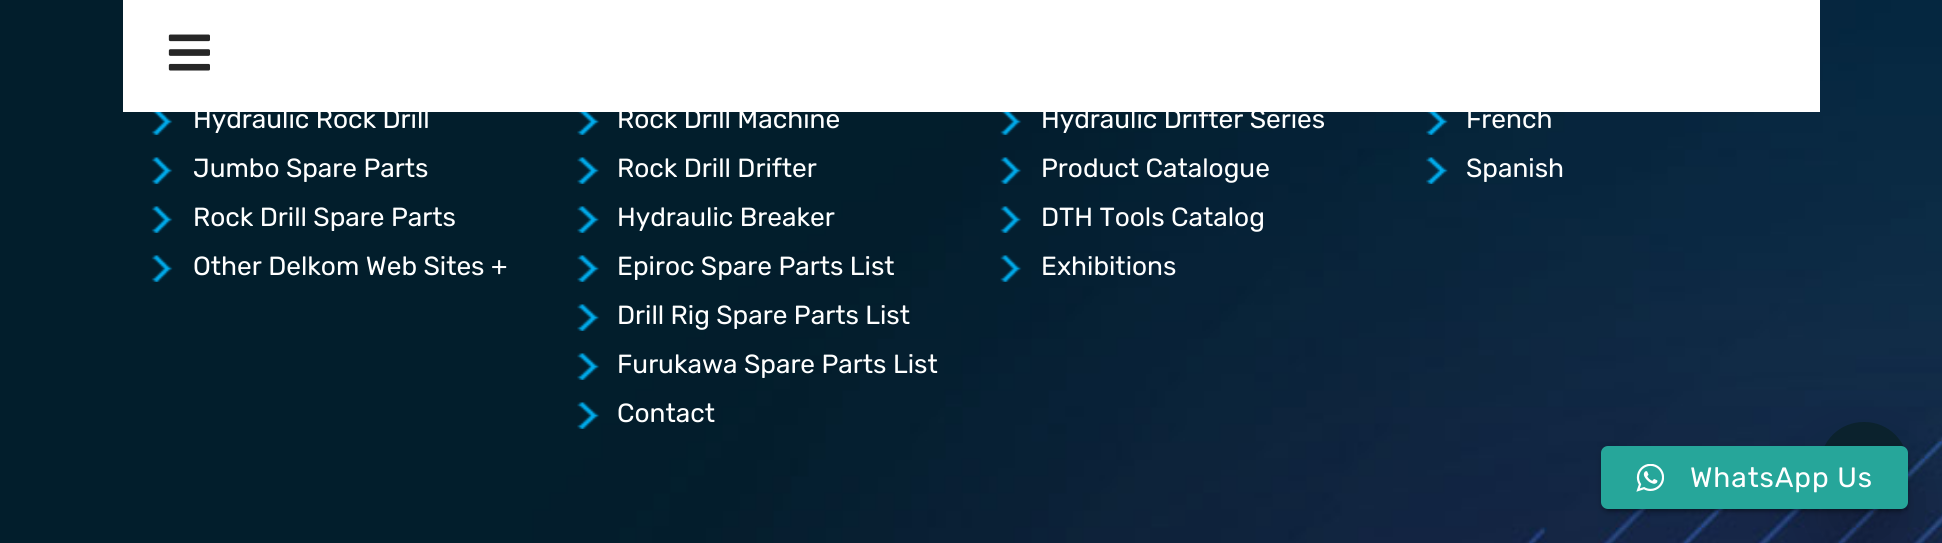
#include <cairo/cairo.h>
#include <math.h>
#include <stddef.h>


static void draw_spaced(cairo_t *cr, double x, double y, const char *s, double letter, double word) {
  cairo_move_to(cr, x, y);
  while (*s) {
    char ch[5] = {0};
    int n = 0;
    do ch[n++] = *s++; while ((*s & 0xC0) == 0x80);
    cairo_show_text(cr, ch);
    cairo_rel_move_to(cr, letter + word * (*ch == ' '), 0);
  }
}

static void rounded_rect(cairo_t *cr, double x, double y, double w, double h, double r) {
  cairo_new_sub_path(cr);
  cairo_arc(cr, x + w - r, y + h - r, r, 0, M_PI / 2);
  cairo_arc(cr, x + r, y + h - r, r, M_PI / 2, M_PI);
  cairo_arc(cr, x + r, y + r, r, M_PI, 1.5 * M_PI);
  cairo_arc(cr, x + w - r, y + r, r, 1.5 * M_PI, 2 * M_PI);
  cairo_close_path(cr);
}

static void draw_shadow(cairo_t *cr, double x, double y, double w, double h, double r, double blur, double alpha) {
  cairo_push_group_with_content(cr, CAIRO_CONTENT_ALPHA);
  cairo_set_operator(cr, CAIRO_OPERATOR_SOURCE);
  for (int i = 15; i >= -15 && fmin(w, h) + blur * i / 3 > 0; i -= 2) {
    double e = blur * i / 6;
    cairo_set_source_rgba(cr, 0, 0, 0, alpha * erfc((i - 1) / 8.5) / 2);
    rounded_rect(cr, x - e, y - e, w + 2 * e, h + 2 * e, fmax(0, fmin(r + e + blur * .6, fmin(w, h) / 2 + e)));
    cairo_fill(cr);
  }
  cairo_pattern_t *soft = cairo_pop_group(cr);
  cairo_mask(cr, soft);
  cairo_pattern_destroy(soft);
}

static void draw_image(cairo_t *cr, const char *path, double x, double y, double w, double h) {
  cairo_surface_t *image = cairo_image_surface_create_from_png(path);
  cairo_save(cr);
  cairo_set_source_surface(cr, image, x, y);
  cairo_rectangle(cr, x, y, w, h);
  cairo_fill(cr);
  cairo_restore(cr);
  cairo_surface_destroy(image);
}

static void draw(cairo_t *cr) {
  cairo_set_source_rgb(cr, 1, 1, 1);
  cairo_paint(cr);
  draw_image(cr, "images/2.png", 0, 0, 1942, 543);
  cairo_set_source_rgb(cr, 1, 1, 1);
  cairo_rectangle(cr, 123, 0, 1697, 112);
  cairo_fill(cr);
  draw_image(cr, "images/1.png", 168, 34, 42, 37);
  draw_image(cr, "images/3.png", 151, 112, 22, 23);
  draw_image(cr, "images/4.png", 151, 157, 22, 27);
  draw_image(cr, "images/4.png", 151, 206, 22, 27);
  draw_image(cr, "images/4.png", 151, 255, 22, 27);
  draw_image(cr, "images/5.png", 577, 112, 23, 23);
  draw_image(cr, "images/6.png", 577, 157, 23, 27);
  draw_image(cr, "images/6.png", 577, 206, 23, 27);
  draw_image(cr, "images/6.png", 577, 255, 23, 27);
  draw_image(cr, "images/6.png", 577, 304, 23, 27);
  draw_image(cr, "images/6.png", 577, 353, 23, 27);
  draw_image(cr, "images/6.png", 577, 402, 23, 27);
  draw_image(cr, "images/7.png", 1000, 112, 22, 23);
  draw_image(cr, "images/8.png", 1000, 157, 22, 27);
  draw_image(cr, "images/9.png", 1000, 206, 22, 27);
  draw_image(cr, "images/9.png", 1000, 255, 22, 27);
  draw_image(cr, "images/10.png", 1426, 112, 22, 23);
  draw_image(cr, "images/11.png", 1426, 157, 22, 27);
  cairo_set_source_rgb(cr, 0, 0, 0);
  draw_shadow(cr, 1820, 462, 88, 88, 44, 37, 0.2);
  cairo_set_source_rgb(cr, 11 / 255.0, 34 / 255.0, 45 / 255.0);
  rounded_rect(cr, 1820, 422, 88, 87, 43.5);
  cairo_fill(cr);
  cairo_set_source_rgb(cr, 0, 0, 0);
  draw_shadow(cr, 1605, 455, 299, 56, 4, 1, 0.2);
  draw_shadow(cr, 1601, 448, 307, 63, 7, 4.5, 0.12);
  draw_shadow(cr, 1601, 450, 307, 63, 7, 2, 0.14);
  cairo_set_source_rgb(cr, 38 / 255.0, 166 / 255.0, 154 / 255.0);
  rounded_rect(cr, 1601, 446, 307, 63, 7);
  cairo_fill(cr);
  draw_image(cr, "images/12.png", 1636, 464, 28, 28);
  cairo_select_font_face(cr, "Rubik", CAIRO_FONT_SLANT_NORMAL, CAIRO_FONT_WEIGHT_NORMAL);
  cairo_set_font_size(cr, 26.25);
  cairo_set_source_rgb(cr, 1, 1, 1);
  cairo_move_to(cr, 193, 128);
  cairo_show_text(cr, "Hydraulic Rock Drill");
  cairo_move_to(cr, 193, 177);
  cairo_show_text(cr, "Jumbo Spare Parts");
  cairo_move_to(cr, 193, 226);
  cairo_show_text(cr, "Rock Drill Spare Parts");
  cairo_move_to(cr, 193, 275);
  cairo_show_text(cr, "Other Delkom Web Sites +");
  cairo_move_to(cr, 617, 128);
  cairo_show_text(cr, "Rock Drill Machine");
  cairo_move_to(cr, 617, 177);
  cairo_show_text(cr, "Rock Drill Drifter");
  cairo_move_to(cr, 617, 226);
  cairo_show_text(cr, "Hydraulic Breaker");
  cairo_move_to(cr, 617, 275);
  cairo_show_text(cr, "Epiroc Spare Parts List");
  cairo_move_to(cr, 617, 324);
  cairo_show_text(cr, "Drill Rig Spare Parts List");
  cairo_move_to(cr, 617, 373);
  cairo_show_text(cr, "Furukawa Spare Parts List");
  cairo_move_to(cr, 617, 422);
  cairo_show_text(cr, "Contact");
  cairo_move_to(cr, 1041, 128);
  cairo_show_text(cr, "Hydraulic Drifter Series");
  cairo_move_to(cr, 1041, 177);
  cairo_show_text(cr, "Product Catalogue");
  cairo_move_to(cr, 1041, 226);
  cairo_show_text(cr, "DTH Tools Catalog");
  cairo_move_to(cr, 1041, 275);
  cairo_show_text(cr, "Exhibitions");
  cairo_move_to(cr, 1466, 128);
  cairo_show_text(cr, "French");
  cairo_move_to(cr, 1466, 177);
  cairo_show_text(cr, "Spanish");
  cairo_set_font_size(cr, 28);
  draw_spaced(cr, 1690, 487, "WhatsApp Us", 0.9, 0);
}

int main(void) {
  cairo_surface_t *surface = cairo_image_surface_create(CAIRO_FORMAT_RGB24, 1942, 543);
  cairo_t *cr = cairo_create(surface);
  cairo_font_options_t *options = cairo_font_options_create();
  cairo_font_options_set_hint_metrics(options, CAIRO_HINT_METRICS_OFF);
  cairo_font_options_set_hint_style(options, CAIRO_HINT_STYLE_NONE);
  cairo_set_font_options(cr, options);
  cairo_set_miter_limit(cr, 4);
  draw(cr);
  cairo_surface_write_to_png(surface, "out.png");
  cairo_font_options_destroy(options);
  cairo_destroy(cr);
  cairo_surface_destroy(surface);
  return 0;
}
